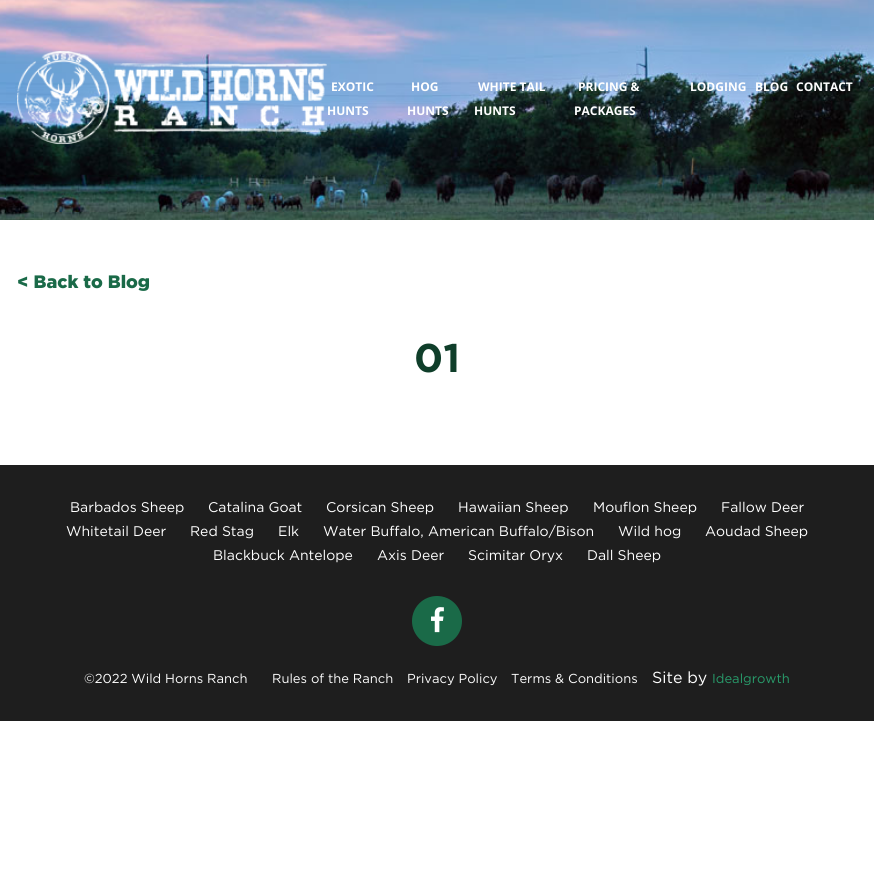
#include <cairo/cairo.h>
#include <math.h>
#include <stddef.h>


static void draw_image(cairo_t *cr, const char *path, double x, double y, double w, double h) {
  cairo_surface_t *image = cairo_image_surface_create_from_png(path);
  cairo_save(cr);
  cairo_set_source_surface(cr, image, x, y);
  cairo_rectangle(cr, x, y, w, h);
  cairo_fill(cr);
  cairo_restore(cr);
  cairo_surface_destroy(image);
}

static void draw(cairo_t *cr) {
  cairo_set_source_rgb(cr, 1, 1, 1);
  cairo_paint(cr);
  draw_image(cr, "images/1.png", 0, 0, 874, 220);
  draw_image(cr, "images/2.png", 17, 51, 310, 93);
  cairo_set_source_rgb(cr, 30 / 255.0, 30 / 255.0, 30 / 255.0);
  cairo_rectangle(cr, 0, 465, 874, 256);
  cairo_fill(cr);
  cairo_set_source_rgb(cr, 26 / 255.0, 106 / 255.0, 72 / 255.0);
  cairo_arc(cr, 437, 621, 25, 0, 2 * M_PI);
  cairo_fill(cr);
  draw_image(cr, "images/3.png", 431, 607, 13, 26);
  cairo_select_font_face(cr, "Open Sans", CAIRO_FONT_SLANT_NORMAL, CAIRO_FONT_WEIGHT_BOLD);
  cairo_set_font_size(cr, 12);
  cairo_set_source_rgb(cr, 1, 1, 1);
  cairo_move_to(cr, 331, 91);
  cairo_show_text(cr, "EXOTIC");
  cairo_move_to(cr, 327, 115);
  cairo_show_text(cr, "HUNTS");
  cairo_move_to(cr, 411, 91);
  cairo_show_text(cr, "HOG");
  cairo_move_to(cr, 407, 115);
  cairo_show_text(cr, "HUNTS");
  cairo_move_to(cr, 478, 91);
  cairo_show_text(cr, "WHITE TAIL");
  cairo_move_to(cr, 474, 115);
  cairo_show_text(cr, "HUNTS");
  cairo_move_to(cr, 578, 91);
  cairo_show_text(cr, "PRICING &");
  cairo_move_to(cr, 574, 115);
  cairo_show_text(cr, "PACKAGES");
  cairo_move_to(cr, 690, 91);
  cairo_show_text(cr, "LODGING");
  cairo_move_to(cr, 755, 91);
  cairo_show_text(cr, "BLOG");
  cairo_move_to(cr, 796, 91);
  cairo_show_text(cr, "CONTACT");
  cairo_select_font_face(cr, "Gotham Black", CAIRO_FONT_SLANT_NORMAL, CAIRO_FONT_WEIGHT_NORMAL);
  cairo_set_font_size(cr, 18);
  cairo_set_source_rgb(cr, 26 / 255.0, 106 / 255.0, 72 / 255.0);
  cairo_move_to(cr, 17, 288);
  cairo_show_text(cr, "< Back to Blog");
  cairo_select_font_face(cr, "Gotham", CAIRO_FONT_SLANT_NORMAL, CAIRO_FONT_WEIGHT_BOLD);
  cairo_set_font_size(cr, 40);
  cairo_set_source_rgb(cr, 15 / 255.0, 62 / 255.0, 42 / 255.0);
  cairo_move_to(cr, 414, 372);
  cairo_show_text(cr, "01");
  cairo_select_font_face(cr, "Gotham", CAIRO_FONT_SLANT_NORMAL, CAIRO_FONT_WEIGHT_NORMAL);
  cairo_set_font_size(cr, 14);
  cairo_set_source_rgb(cr, 1, 1, 1);
  cairo_move_to(cr, 70, 512);
  cairo_show_text(cr, "Barbados Sheep");
  cairo_move_to(cr, 208, 512);
  cairo_show_text(cr, "Catalina Goat");
  cairo_move_to(cr, 326, 512);
  cairo_show_text(cr, "Corsican Sheep");
  cairo_move_to(cr, 458, 512);
  cairo_show_text(cr, "Hawaiian Sheep");
  cairo_move_to(cr, 593, 512);
  cairo_show_text(cr, "Mouflon Sheep");
  cairo_move_to(cr, 721, 512);
  cairo_show_text(cr, "Fallow Deer");
  cairo_move_to(cr, 66, 536);
  cairo_show_text(cr, "Whitetail Deer");
  cairo_move_to(cr, 190, 536);
  cairo_show_text(cr, "Red Stag");
  cairo_move_to(cr, 278, 536);
  cairo_show_text(cr, "Elk");
  cairo_move_to(cr, 323, 536);
  cairo_show_text(cr, "Water Buffalo, American Buffalo/Bison");
  cairo_move_to(cr, 618, 536);
  cairo_show_text(cr, "Wild hog");
  cairo_move_to(cr, 705, 536);
  cairo_show_text(cr, "Aoudad Sheep");
  cairo_move_to(cr, 213, 560);
  cairo_show_text(cr, "Blackbuck Antelope");
  cairo_move_to(cr, 377, 560);
  cairo_show_text(cr, "Axis Deer");
  cairo_move_to(cr, 468, 560);
  cairo_show_text(cr, "Scimitar Oryx");
  cairo_move_to(cr, 587, 560);
  cairo_show_text(cr, "Dall Sheep");
  cairo_set_font_size(cr, 13);
  cairo_move_to(cr, 84, 683);
  cairo_show_text(cr, "©2022 Wild Horns Ranch");
  cairo_move_to(cr, 272, 683);
  cairo_show_text(cr, "Rules of the Ranch");
  cairo_move_to(cr, 407, 683);
  cairo_show_text(cr, "Privacy Policy");
  cairo_move_to(cr, 511, 683);
  cairo_show_text(cr, "Terms & Conditions");
  cairo_set_font_size(cr, 16);
  cairo_move_to(cr, 652, 683);
  cairo_show_text(cr, "Site by");
  cairo_set_font_size(cr, 13);
  cairo_set_source_rgb(cr, 40 / 255.0, 156 / 255.0, 107 / 255.0);
  cairo_move_to(cr, 712, 683);
  cairo_show_text(cr, "Idealgrowth");
}

int main(void) {
  cairo_surface_t *surface = cairo_image_surface_create(CAIRO_FORMAT_RGB24, 874, 880);
  cairo_t *cr = cairo_create(surface);
  cairo_font_options_t *options = cairo_font_options_create();
  cairo_font_options_set_hint_metrics(options, CAIRO_HINT_METRICS_OFF);
  cairo_font_options_set_hint_style(options, CAIRO_HINT_STYLE_NONE);
  cairo_set_font_options(cr, options);
  cairo_set_miter_limit(cr, 4);
  draw(cr);
  cairo_surface_write_to_png(surface, "out.png");
  cairo_font_options_destroy(options);
  cairo_destroy(cr);
  cairo_surface_destroy(surface);
  return 0;
}
